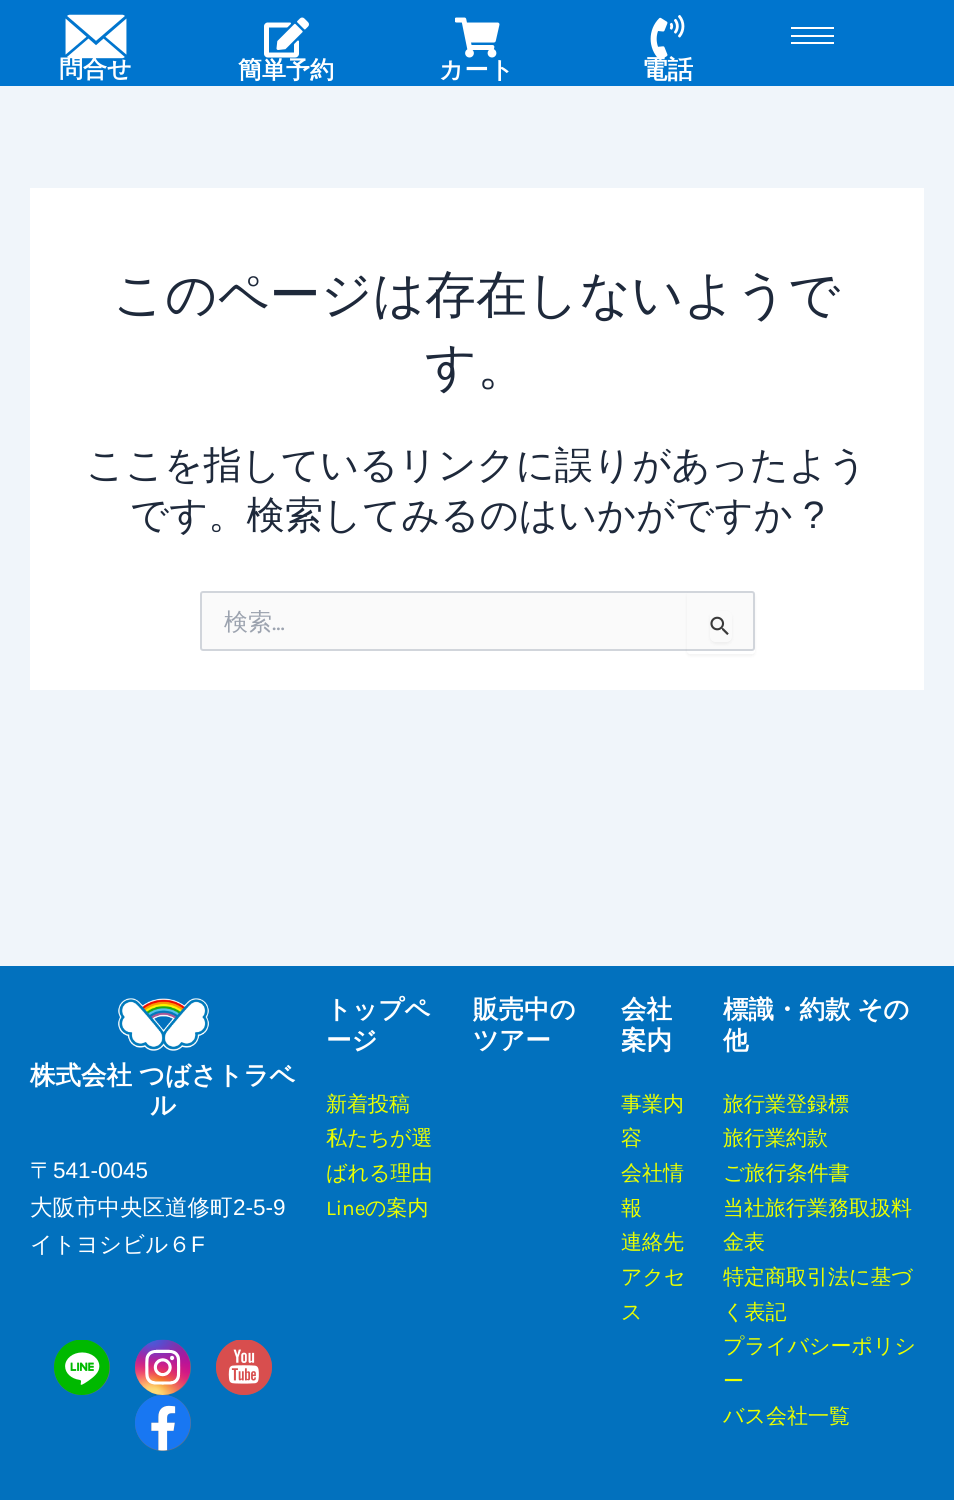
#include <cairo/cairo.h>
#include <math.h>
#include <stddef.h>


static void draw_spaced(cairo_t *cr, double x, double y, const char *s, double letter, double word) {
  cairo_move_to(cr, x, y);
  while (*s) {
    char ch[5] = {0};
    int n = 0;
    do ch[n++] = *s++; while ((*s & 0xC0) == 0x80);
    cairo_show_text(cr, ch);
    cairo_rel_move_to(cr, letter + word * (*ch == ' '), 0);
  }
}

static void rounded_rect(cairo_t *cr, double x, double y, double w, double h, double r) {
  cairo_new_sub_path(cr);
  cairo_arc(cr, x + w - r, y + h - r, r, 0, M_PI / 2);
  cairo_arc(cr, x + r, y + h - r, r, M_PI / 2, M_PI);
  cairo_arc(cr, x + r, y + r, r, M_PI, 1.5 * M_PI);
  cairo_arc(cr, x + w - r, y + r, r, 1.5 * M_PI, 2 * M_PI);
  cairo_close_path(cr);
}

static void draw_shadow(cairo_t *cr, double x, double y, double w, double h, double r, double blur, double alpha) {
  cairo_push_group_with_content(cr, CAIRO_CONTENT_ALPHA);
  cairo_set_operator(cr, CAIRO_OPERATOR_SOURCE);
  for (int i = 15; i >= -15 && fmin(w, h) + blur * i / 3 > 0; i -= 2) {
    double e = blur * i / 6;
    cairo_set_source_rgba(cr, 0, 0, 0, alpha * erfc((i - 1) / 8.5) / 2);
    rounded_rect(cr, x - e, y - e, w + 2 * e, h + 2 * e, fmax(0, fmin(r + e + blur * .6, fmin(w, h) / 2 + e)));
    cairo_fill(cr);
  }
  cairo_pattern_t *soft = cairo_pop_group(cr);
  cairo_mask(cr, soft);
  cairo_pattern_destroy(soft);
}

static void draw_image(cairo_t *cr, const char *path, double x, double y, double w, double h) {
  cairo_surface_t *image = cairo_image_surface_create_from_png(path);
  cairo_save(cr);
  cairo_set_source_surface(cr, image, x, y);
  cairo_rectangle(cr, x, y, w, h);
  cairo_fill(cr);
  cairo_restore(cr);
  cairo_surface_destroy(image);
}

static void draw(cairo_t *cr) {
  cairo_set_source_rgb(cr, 240 / 255.0, 245 / 255.0, 250 / 255.0);
  cairo_paint(cr);
  cairo_set_source_rgb(cr, 0, 117 / 255.0, 206 / 255.0);
  cairo_rectangle(cr, 0, 0, 954, 86);
  cairo_fill(cr);
  cairo_set_source_rgb(cr, 1, 1, 1);
  cairo_rectangle(cr, 791, 27, 43, 2);
  cairo_fill(cr);
  cairo_rectangle(cr, 791, 35, 43, 2);
  cairo_fill(cr);
  cairo_rectangle(cr, 791, 42, 43, 2);
  cairo_fill(cr);
  draw_image(cr, "images/2.png", 264, 17, 45, 41);
  draw_image(cr, "images/3.png", 455, 17, 45, 41);
  cairo_rectangle(cr, 30, 188, 894, 502);
  cairo_fill(cr);
  cairo_set_source_rgb(cr, 250 / 255.0, 250 / 255.0, 250 / 255.0);
  rounded_rect(cr, 201, 592, 553, 58, 2);
  cairo_fill_preserve(cr);
  cairo_set_source_rgb(cr, 209 / 255.0, 213 / 255.0, 219 / 255.0);
  cairo_stroke(cr);
  cairo_save(cr);
  cairo_set_fill_rule(cr, CAIRO_FILL_RULE_EVEN_ODD);
  cairo_new_path(cr);
  cairo_move_to(cr, 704, 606);
  cairo_line_to(cr, 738, 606);
  cairo_line_to(cr, 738, 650);
  cairo_line_to(cr, 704, 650);
  cairo_close_path(cr);
  cairo_move_to(cr, 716, 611);
  cairo_line_to(cr, 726, 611);
  cairo_curve_to(cr, 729.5, 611, 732, 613.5, 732, 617);
  cairo_line_to(cr, 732, 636);
  cairo_curve_to(cr, 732, 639.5, 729.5, 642, 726, 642);
  cairo_line_to(cr, 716, 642);
  cairo_curve_to(cr, 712.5, 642, 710, 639.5, 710, 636);
  cairo_line_to(cr, 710, 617);
  cairo_curve_to(cr, 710, 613.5, 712.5, 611, 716, 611);
  cairo_close_path(cr);
  cairo_clip(cr);
  cairo_set_source_rgb(cr, 0, 0, 0);
  draw_shadow(cr, 710, 612, 22, 32, 6, 1.5, 0.05);
  cairo_restore(cr);
  draw_image(cr, "images/5.png", 710, 616, 19, 19);
  cairo_save(cr);
  cairo_set_fill_rule(cr, CAIRO_FILL_RULE_EVEN_ODD);
  cairo_new_path(cr);
  cairo_move_to(cr, 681, 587);
  cairo_line_to(cr, 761, 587);
  cairo_line_to(cr, 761, 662);
  cairo_line_to(cr, 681, 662);
  cairo_close_path(cr);
  cairo_move_to(cr, 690, 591);
  cairo_line_to(cr, 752, 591);
  cairo_curve_to(cr, 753.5, 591, 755, 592.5, 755, 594);
  cairo_line_to(cr, 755, 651);
  cairo_curve_to(cr, 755, 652.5, 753.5, 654, 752, 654);
  cairo_line_to(cr, 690, 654);
  cairo_curve_to(cr, 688.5, 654, 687, 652.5, 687, 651);
  cairo_line_to(cr, 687, 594);
  cairo_curve_to(cr, 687, 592.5, 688.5, 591, 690, 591);
  cairo_close_path(cr);
  cairo_clip(cr);
  cairo_set_source_rgb(cr, 0, 0, 0);
  draw_shadow(cr, 687, 593, 68, 63, 3, 1.5, 0.05);
  cairo_restore(cr);
  cairo_set_source_rgb(cr, 2 / 255.0, 113 / 255.0, 190 / 255.0);
  cairo_rectangle(cr, 0, 966, 954, 534);
  cairo_fill(cr);
  draw_image(cr, "images/6.png", 118, 998, 91, 53);
  cairo_set_source_rgb(cr, 105 / 255.0, 114 / 255.0, 125 / 255.0);
  rounded_rect(cr, 54, 1340, 56, 55, 27.5);
  cairo_fill(cr);
  draw_image(cr, "images/7.png", 54, 1340, 56, 55);
  rounded_rect(cr, 135, 1340, 56, 55, 27.5);
  cairo_fill(cr);
  draw_image(cr, "images/8.png", 135, 1339, 56, 56);
  rounded_rect(cr, 216, 1340, 56, 55, 27.5);
  cairo_fill(cr);
  draw_image(cr, "images/9.png", 216, 1340, 56, 55);
  cairo_arc(cr, 163, 1423, 28, 0, 2 * M_PI);
  cairo_fill(cr);
  draw_image(cr, "images/10.png", 135, 1395, 56, 56);
  cairo_select_font_face(cr, "WenQuanYi Zen Hei", CAIRO_FONT_SLANT_NORMAL, CAIRO_FONT_WEIGHT_BOLD);
  cairo_set_font_size(cr, 24);
  cairo_set_source_rgb(cr, 1, 1, 1);
  cairo_move_to(cr, 59, 77);
  cairo_show_text(cr, "問合せ");
  draw_image(cr, "images/1.png", 65, 14, 62, 45);
  cairo_move_to(cr, 238, 78);
  cairo_show_text(cr, "簡単予約");
  draw_spaced(cr, 439, 78, "カート", 1, 0);
  cairo_set_font_size(cr, 25.5);
  cairo_move_to(cr, 642, 78);
  cairo_show_text(cr, "電話");
  draw_image(cr, "images/4.png", 650, 15, 35, 45);
  cairo_select_font_face(cr, "WenQuanYi Zen Hei Medium", CAIRO_FONT_SLANT_NORMAL, CAIRO_FONT_WEIGHT_NORMAL);
  cairo_set_font_size(cr, 51);
  cairo_set_source_rgb(cr, 30 / 255.0, 41 / 255.0, 59 / 255.0);
  cairo_move_to(cr, 113, 312);
  cairo_show_text(cr, "このページは存在しないようで");
  cairo_move_to(cr, 425, 384);
  cairo_show_text(cr, "す。");
  cairo_set_font_size(cr, 38.25);
  cairo_move_to(cr, 86, 478);
  cairo_show_text(cr, "ここを指しているリンクに誤りがあったよう");
  cairo_move_to(cr, 130, 528);
  cairo_show_text(cr, "です。検索してみるのはいかがですか");
  cairo_select_font_face(cr, "Liberation Sans", CAIRO_FONT_SLANT_NORMAL, CAIRO_FONT_WEIGHT_NORMAL);
  cairo_move_to(cr, 803, 528);
  cairo_show_text(cr, "?");
  cairo_select_font_face(cr, "WenQuanYi Zen Hei Medium", CAIRO_FONT_SLANT_NORMAL, CAIRO_FONT_WEIGHT_NORMAL);
  cairo_set_font_size(cr, 24);
  cairo_set_source_rgb(cr, 156 / 255.0, 163 / 255.0, 175 / 255.0);
  cairo_move_to(cr, 224, 630);
  cairo_show_text(cr, "検索");
  cairo_select_font_face(cr, "Karla", CAIRO_FONT_SLANT_NORMAL, CAIRO_FONT_WEIGHT_NORMAL);
  cairo_move_to(cr, 272, 630);
  cairo_show_text(cr, "...");
  cairo_select_font_face(cr, "WenQuanYi Zen Hei", CAIRO_FONT_SLANT_NORMAL, CAIRO_FONT_WEIGHT_BOLD);
  cairo_set_font_size(cr, 25.5);
  cairo_set_source_rgb(cr, 1, 1, 1);
  cairo_move_to(cr, 326, 1018);
  cairo_show_text(cr, "トップペ");
  cairo_move_to(cr, 326, 1049);
  cairo_show_text(cr, "ージ");
  cairo_select_font_face(cr, "WenQuanYi Zen Hei Medium", CAIRO_FONT_SLANT_NORMAL, CAIRO_FONT_WEIGHT_NORMAL);
  cairo_set_font_size(cr, 21);
  cairo_set_source_rgb(cr, 234 / 255.0, 1, 0);
  cairo_move_to(cr, 326, 1111);
  cairo_show_text(cr, "新着投稿");
  cairo_move_to(cr, 326, 1145);
  cairo_show_text(cr, "私たちが選");
  cairo_move_to(cr, 326, 1180);
  cairo_show_text(cr, "ばれる理由");
  cairo_select_font_face(cr, "Karla", CAIRO_FONT_SLANT_NORMAL, CAIRO_FONT_WEIGHT_NORMAL);
  cairo_move_to(cr, 326, 1215);
  cairo_show_text(cr, "Line");
  cairo_select_font_face(cr, "WenQuanYi Zen Hei Medium", CAIRO_FONT_SLANT_NORMAL, CAIRO_FONT_WEIGHT_NORMAL);
  cairo_move_to(cr, 365, 1215);
  cairo_show_text(cr, "の案内");
  cairo_select_font_face(cr, "WenQuanYi Zen Hei", CAIRO_FONT_SLANT_NORMAL, CAIRO_FONT_WEIGHT_BOLD);
  cairo_set_font_size(cr, 25.5);
  cairo_set_source_rgb(cr, 1, 1, 1);
  cairo_move_to(cr, 473, 1018);
  cairo_show_text(cr, "販売中の");
  cairo_move_to(cr, 473, 1049);
  cairo_show_text(cr, "ツアー");
  cairo_move_to(cr, 621, 1018);
  cairo_show_text(cr, "会社");
  cairo_move_to(cr, 621, 1049);
  cairo_show_text(cr, "案内");
  cairo_select_font_face(cr, "WenQuanYi Zen Hei Medium", CAIRO_FONT_SLANT_NORMAL, CAIRO_FONT_WEIGHT_NORMAL);
  cairo_set_font_size(cr, 21);
  cairo_set_source_rgb(cr, 234 / 255.0, 1, 0);
  cairo_move_to(cr, 621, 1111);
  cairo_show_text(cr, "事業内");
  cairo_move_to(cr, 621, 1145);
  cairo_show_text(cr, "容");
  cairo_move_to(cr, 621, 1180);
  cairo_show_text(cr, "会社情");
  cairo_move_to(cr, 621, 1215);
  cairo_show_text(cr, "報");
  cairo_move_to(cr, 621, 1249);
  cairo_show_text(cr, "連絡先");
  cairo_move_to(cr, 621, 1284);
  cairo_show_text(cr, "アクセ");
  cairo_move_to(cr, 621, 1319);
  cairo_show_text(cr, "ス");
  cairo_select_font_face(cr, "WenQuanYi Zen Hei", CAIRO_FONT_SLANT_NORMAL, CAIRO_FONT_WEIGHT_BOLD);
  cairo_set_font_size(cr, 25.5);
  cairo_set_source_rgb(cr, 1, 1, 1);
  draw_spaced(cr, 723, 1018, "標識・約款 その", 0, -1);
  cairo_move_to(cr, 723, 1049);
  cairo_show_text(cr, "他");
  cairo_select_font_face(cr, "WenQuanYi Zen Hei Medium", CAIRO_FONT_SLANT_NORMAL, CAIRO_FONT_WEIGHT_NORMAL);
  cairo_set_font_size(cr, 21);
  cairo_set_source_rgb(cr, 234 / 255.0, 1, 0);
  cairo_move_to(cr, 723, 1111);
  cairo_show_text(cr, "旅行業登録標");
  cairo_move_to(cr, 723, 1145);
  cairo_show_text(cr, "旅行業約款");
  cairo_move_to(cr, 723, 1180);
  cairo_show_text(cr, "ご旅行条件書");
  cairo_move_to(cr, 723, 1215);
  cairo_show_text(cr, "当社旅行業務取扱料");
  cairo_move_to(cr, 723, 1249);
  cairo_show_text(cr, "金表");
  cairo_move_to(cr, 723, 1284);
  cairo_show_text(cr, "特定商取引法に基づ");
  cairo_move_to(cr, 723, 1319);
  cairo_show_text(cr, "く表記");
  cairo_move_to(cr, 723, 1353);
  cairo_show_text(cr, "プライバシーポリシ");
  cairo_move_to(cr, 723, 1388);
  cairo_show_text(cr, "ー");
  cairo_move_to(cr, 723, 1423);
  cairo_show_text(cr, "バス会社一覧");
  cairo_select_font_face(cr, "WenQuanYi Zen Hei", CAIRO_FONT_SLANT_NORMAL, CAIRO_FONT_WEIGHT_BOLD);
  cairo_set_font_size(cr, 25.5);
  cairo_set_source_rgb(cr, 1, 1, 1);
  cairo_move_to(cr, 30, 1084);
  cairo_show_text(cr, "株式会社");
  cairo_move_to(cr, 139, 1084);
  cairo_show_text(cr, "つばさトラベ");
  cairo_move_to(cr, 150, 1114);
  cairo_show_text(cr, "ル");
  cairo_select_font_face(cr, "WenQuanYi Zen Hei Medium", CAIRO_FONT_SLANT_NORMAL, CAIRO_FONT_WEIGHT_NORMAL);
  cairo_set_font_size(cr, 22.5);
  cairo_move_to(cr, 30, 1178);
  cairo_show_text(cr, "〒");
  cairo_select_font_face(cr, "Liberation Sans", CAIRO_FONT_SLANT_NORMAL, CAIRO_FONT_WEIGHT_NORMAL);
  cairo_move_to(cr, 53, 1178);
  cairo_show_text(cr, "541-0045");
  cairo_select_font_face(cr, "WenQuanYi Zen Hei Medium", CAIRO_FONT_SLANT_NORMAL, CAIRO_FONT_WEIGHT_NORMAL);
  cairo_move_to(cr, 30, 1215);
  cairo_show_text(cr, "大阪市中央区道修町");
  cairo_select_font_face(cr, "Liberation Sans", CAIRO_FONT_SLANT_NORMAL, CAIRO_FONT_WEIGHT_NORMAL);
  cairo_move_to(cr, 233, 1215);
  cairo_show_text(cr, "2-5-9");
  cairo_select_font_face(cr, "WenQuanYi Zen Hei Medium", CAIRO_FONT_SLANT_NORMAL, CAIRO_FONT_WEIGHT_NORMAL);
  cairo_move_to(cr, 30, 1252);
  cairo_show_text(cr, "イトヨシビル６");
  cairo_select_font_face(cr, "Liberation Sans", CAIRO_FONT_SLANT_NORMAL, CAIRO_FONT_WEIGHT_NORMAL);
  cairo_move_to(cr, 191, 1252);
  cairo_show_text(cr, "F");
}

int main(void) {
  cairo_surface_t *surface = cairo_image_surface_create(CAIRO_FORMAT_RGB24, 954, 1500);
  cairo_t *cr = cairo_create(surface);
  cairo_font_options_t *options = cairo_font_options_create();
  cairo_font_options_set_hint_metrics(options, CAIRO_HINT_METRICS_OFF);
  cairo_font_options_set_hint_style(options, CAIRO_HINT_STYLE_NONE);
  cairo_set_font_options(cr, options);
  cairo_set_miter_limit(cr, 4);
  draw(cr);
  cairo_surface_write_to_png(surface, "out.png");
  cairo_font_options_destroy(options);
  cairo_destroy(cr);
  cairo_surface_destroy(surface);
  return 0;
}
